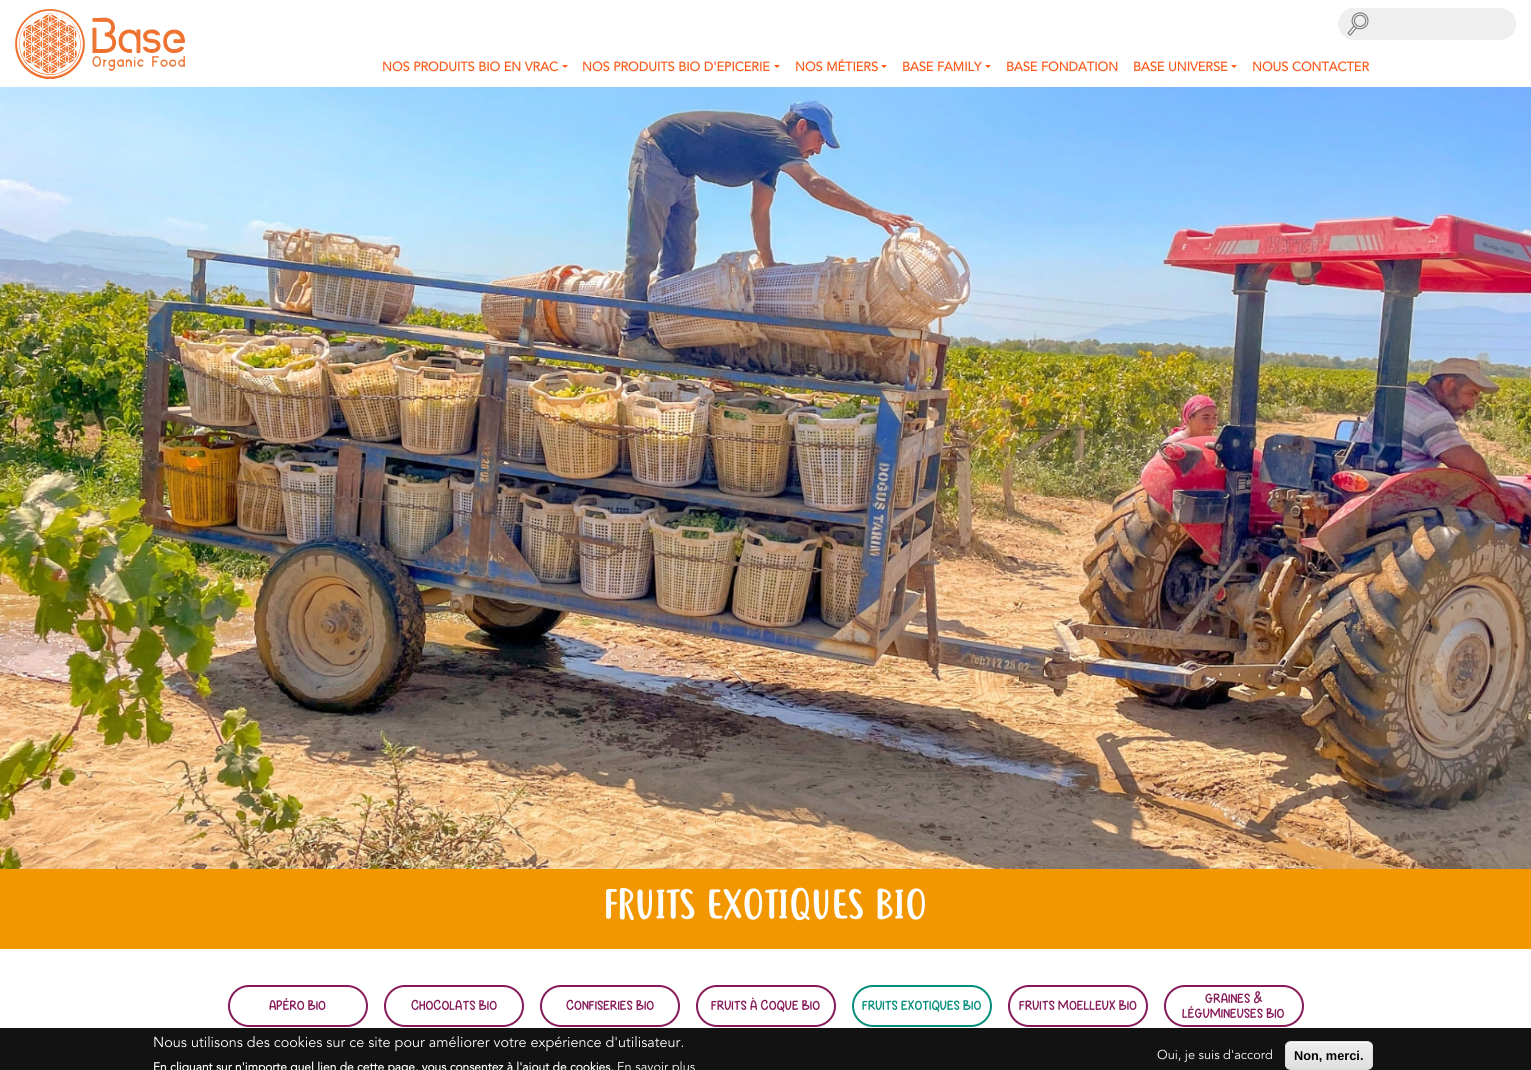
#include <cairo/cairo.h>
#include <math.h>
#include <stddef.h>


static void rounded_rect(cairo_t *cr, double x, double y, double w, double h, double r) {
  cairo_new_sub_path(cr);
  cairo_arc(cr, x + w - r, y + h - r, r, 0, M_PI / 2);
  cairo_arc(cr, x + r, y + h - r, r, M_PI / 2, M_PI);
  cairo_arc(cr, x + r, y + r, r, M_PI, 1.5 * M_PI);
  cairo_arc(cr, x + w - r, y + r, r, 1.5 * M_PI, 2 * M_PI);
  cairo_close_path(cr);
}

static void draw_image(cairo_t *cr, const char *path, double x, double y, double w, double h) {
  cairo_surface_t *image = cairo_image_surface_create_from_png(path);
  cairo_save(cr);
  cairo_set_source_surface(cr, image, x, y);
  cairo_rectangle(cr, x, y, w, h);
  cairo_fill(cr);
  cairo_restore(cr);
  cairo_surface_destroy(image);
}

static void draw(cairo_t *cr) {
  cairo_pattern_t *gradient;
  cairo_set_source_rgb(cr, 1, 1, 1);
  cairo_paint(cr);
  draw_image(cr, "images/1.png", 15, 9, 170, 70);
  cairo_set_source_rgb(cr, 239 / 255.0, 239 / 255.0, 239 / 255.0);
  rounded_rect(cr, 1338, 8, 178, 32, 16);
  cairo_fill(cr);
  draw_image(cr, "images/2.png", 1347, 12, 22, 24);
  cairo_set_source_rgb(cr, 253 / 255.0, 90 / 255.0, 26 / 255.0);
  cairo_new_path(cr);
  cairo_move_to(cr, 562, 65);
  cairo_line_to(cr, 568, 65);
  cairo_line_to(cr, 565, 68);
  cairo_close_path(cr);
  cairo_fill(cr);
  cairo_new_path(cr);
  cairo_move_to(cr, 774, 65);
  cairo_line_to(cr, 780, 65);
  cairo_line_to(cr, 777, 68);
  cairo_close_path(cr);
  cairo_fill(cr);
  cairo_new_path(cr);
  cairo_move_to(cr, 881, 65);
  cairo_line_to(cr, 887, 65);
  cairo_line_to(cr, 884, 68);
  cairo_close_path(cr);
  cairo_fill(cr);
  cairo_new_path(cr);
  cairo_move_to(cr, 985, 65);
  cairo_line_to(cr, 991, 65);
  cairo_line_to(cr, 988, 68);
  cairo_close_path(cr);
  cairo_fill(cr);
  cairo_new_path(cr);
  cairo_move_to(cr, 1231, 65);
  cairo_line_to(cr, 1237, 65);
  cairo_line_to(cr, 1234, 68);
  cairo_close_path(cr);
  cairo_fill(cr);
  draw_image(cr, "images/3.png", 0, 87, 1531, 782);
  cairo_set_source_rgb(cr, 242 / 255.0, 151 / 255.0, 0);
  cairo_rectangle(cr, 0, 869, 1531, 80);
  cairo_fill(cr);
  rounded_rect(cr, 229, 986, 138, 40, 20);
  cairo_set_source_rgb(cr, 134 / 255.0, 25 / 255.0, 88 / 255.0);
  cairo_stroke(cr);
  rounded_rect(cr, 385, 986, 138, 40, 20);
  cairo_stroke(cr);
  rounded_rect(cr, 541, 986, 138, 40, 20);
  cairo_stroke(cr);
  rounded_rect(cr, 697, 986, 138, 40, 20);
  cairo_stroke(cr);
  rounded_rect(cr, 853, 986, 138, 40, 20);
  cairo_set_source_rgb(cr, 4 / 255.0, 142 / 255.0, 122 / 255.0);
  cairo_stroke(cr);
  rounded_rect(cr, 1009, 986, 138, 40, 20);
  cairo_set_source_rgb(cr, 134 / 255.0, 25 / 255.0, 88 / 255.0);
  cairo_stroke(cr);
  rounded_rect(cr, 1165, 986, 138, 40, 20);
  cairo_stroke(cr);
  cairo_set_source_rgb(cr, 18 / 255.0, 18 / 255.0, 18 / 255.0);
  cairo_rectangle(cr, 0, 1028, 1531, 42);
  cairo_fill(cr);
  cairo_save(cr);
  rounded_rect(cr, 1285, 1041, 88, 29, 6);
  cairo_clip(cr);
  gradient = cairo_pattern_create_linear(1329, 1042, 1329, 1069);
  cairo_pattern_add_color_stop_rgba(gradient, 0.05, 237 / 255.0, 237 / 255.0, 237 / 255.0, 1);
  cairo_pattern_add_color_stop_rgba(gradient, 1, 223 / 255.0, 223 / 255.0, 223 / 255.0, 1);
  cairo_set_source(cr, gradient);
  cairo_pattern_destroy(gradient);
  cairo_rectangle(cr, 1285, 1042, 88, 27);
  cairo_fill(cr);
  cairo_restore(cr);
  cairo_set_source_rgb(cr, 1, 1, 1);
  cairo_new_path(cr);
  cairo_move_to(cr, 1291, 1043);
  cairo_line_to(cr, 1367, 1043);
  cairo_curve_to(cr, 1370, 1043, 1372, 1045, 1372, 1048);
  cairo_curve_to(cr, 1372, 1039, 1360, 1042, 1354, 1042);
  cairo_line_to(cr, 1304, 1042);
  cairo_curve_to(cr, 1298, 1042, 1286, 1039, 1286, 1048);
  cairo_curve_to(cr, 1286, 1045, 1288, 1043, 1291, 1043);
  cairo_close_path(cr);
  cairo_fill(cr);
  rounded_rect(cr, 1285.5, 1041.5, 87, 28, 5.5);
  cairo_set_source_rgb(cr, 220 / 255.0, 220 / 255.0, 220 / 255.0);
  cairo_set_line_width(cr, 1);
  cairo_stroke(cr);
  cairo_select_font_face(cr, "Avenir", CAIRO_FONT_SLANT_NORMAL, CAIRO_FONT_WEIGHT_BOLD);
  cairo_set_font_size(cr, 12.75);
  cairo_set_source_rgb(cr, 253 / 255.0, 90 / 255.0, 26 / 255.0);
  cairo_move_to(cr, 382, 71);
  cairo_show_text(cr, "NOS PRODUITS BIO EN VRAC");
  cairo_move_to(cr, 582, 71);
  cairo_show_text(cr, "NOS PRODUITS BIO D'EPICERIE");
  cairo_move_to(cr, 795, 71);
  cairo_show_text(cr, "NOS MÉTIERS");
  cairo_move_to(cr, 902, 71);
  cairo_show_text(cr, "BASE FAMILY");
  cairo_move_to(cr, 1006, 71);
  cairo_show_text(cr, "BASE FONDATION");
  cairo_move_to(cr, 1133, 71);
  cairo_show_text(cr, "BASE UNIVERSE");
  cairo_move_to(cr, 1252, 71);
  cairo_show_text(cr, "NOUS CONTACTER");
  cairo_select_font_face(cr, "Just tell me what", CAIRO_FONT_SLANT_NORMAL, CAIRO_FONT_WEIGHT_NORMAL);
  cairo_set_font_size(cr, 40);
  cairo_set_source_rgb(cr, 1, 1, 1);
  cairo_move_to(cr, 603, 918);
  cairo_show_text(cr, "FRUITS EXOTIQUES BIO");
  cairo_select_font_face(cr, "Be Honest", CAIRO_FONT_SLANT_NORMAL, CAIRO_FONT_WEIGHT_NORMAL);
  cairo_set_font_size(cr, 14.4);
  cairo_set_source_rgb(cr, 134 / 255.0, 25 / 255.0, 88 / 255.0);
  cairo_move_to(cr, 269, 1010);
  cairo_show_text(cr, "APÉRO BIO");
  cairo_move_to(cr, 411, 1010);
  cairo_show_text(cr, "CHOCOLATS BIO");
  cairo_move_to(cr, 566, 1010);
  cairo_show_text(cr, "CONFISERIES BIO");
  cairo_move_to(cr, 711, 1010);
  cairo_show_text(cr, "FRUITS À COQUE BIO");
  cairo_set_source_rgb(cr, 4 / 255.0, 142 / 255.0, 122 / 255.0);
  cairo_move_to(cr, 862, 1010);
  cairo_show_text(cr, "FRUITS EXOTIQUES BIO");
  cairo_set_source_rgb(cr, 134 / 255.0, 25 / 255.0, 88 / 255.0);
  cairo_move_to(cr, 1019, 1010);
  cairo_show_text(cr, "FRUITS MOELLEUX BIO");
  cairo_move_to(cr, 1205, 1003);
  cairo_show_text(cr, "GRAINES &");
  cairo_move_to(cr, 1182, 1018);
  cairo_show_text(cr, "LÉGUMINEUSES BIO");
  cairo_select_font_face(cr, "Avenir", CAIRO_FONT_SLANT_NORMAL, CAIRO_FONT_WEIGHT_NORMAL);
  cairo_set_source_rgb(cr, 1, 1, 1);
  cairo_move_to(cr, 153, 1047);
  cairo_show_text(cr, "Nous utilisons des cookies sur ce site pour améliorer votre expérience d'utilisateur.");
  cairo_select_font_face(cr, "Avenir", CAIRO_FONT_SLANT_NORMAL, CAIRO_FONT_WEIGHT_BOLD);
  cairo_set_font_size(cr, 12);
  cairo_move_to(cr, 153, 1071);
  cairo_show_text(cr, "En cliquant sur n'importe quel lien de cette page, vous consentez à l'ajout de cookies.");
  cairo_select_font_face(cr, "Avenir", CAIRO_FONT_SLANT_NORMAL, CAIRO_FONT_WEIGHT_NORMAL);
  cairo_set_font_size(cr, 12.75);
  cairo_move_to(cr, 617, 1071);
  cairo_show_text(cr, "En savoir plus");
  cairo_move_to(cr, 1157, 1059);
  cairo_show_text(cr, "Oui, je suis d'accord");
  cairo_select_font_face(cr, "Liberation Sans", CAIRO_FONT_SLANT_NORMAL, CAIRO_FONT_WEIGHT_BOLD);
  cairo_set_source_rgb(cr, 0, 0, 0);
  cairo_move_to(cr, 1294, 1060);
  cairo_show_text(cr, "Non, merci.");
}

int main(void) {
  cairo_surface_t *surface = cairo_image_surface_create(CAIRO_FORMAT_RGB24, 1531, 1070);
  cairo_t *cr = cairo_create(surface);
  cairo_font_options_t *options = cairo_font_options_create();
  cairo_font_options_set_hint_metrics(options, CAIRO_HINT_METRICS_OFF);
  cairo_font_options_set_hint_style(options, CAIRO_HINT_STYLE_NONE);
  cairo_set_font_options(cr, options);
  cairo_set_miter_limit(cr, 4);
  draw(cr);
  cairo_surface_write_to_png(surface, "out.png");
  cairo_font_options_destroy(options);
  cairo_destroy(cr);
  cairo_surface_destroy(surface);
  return 0;
}
